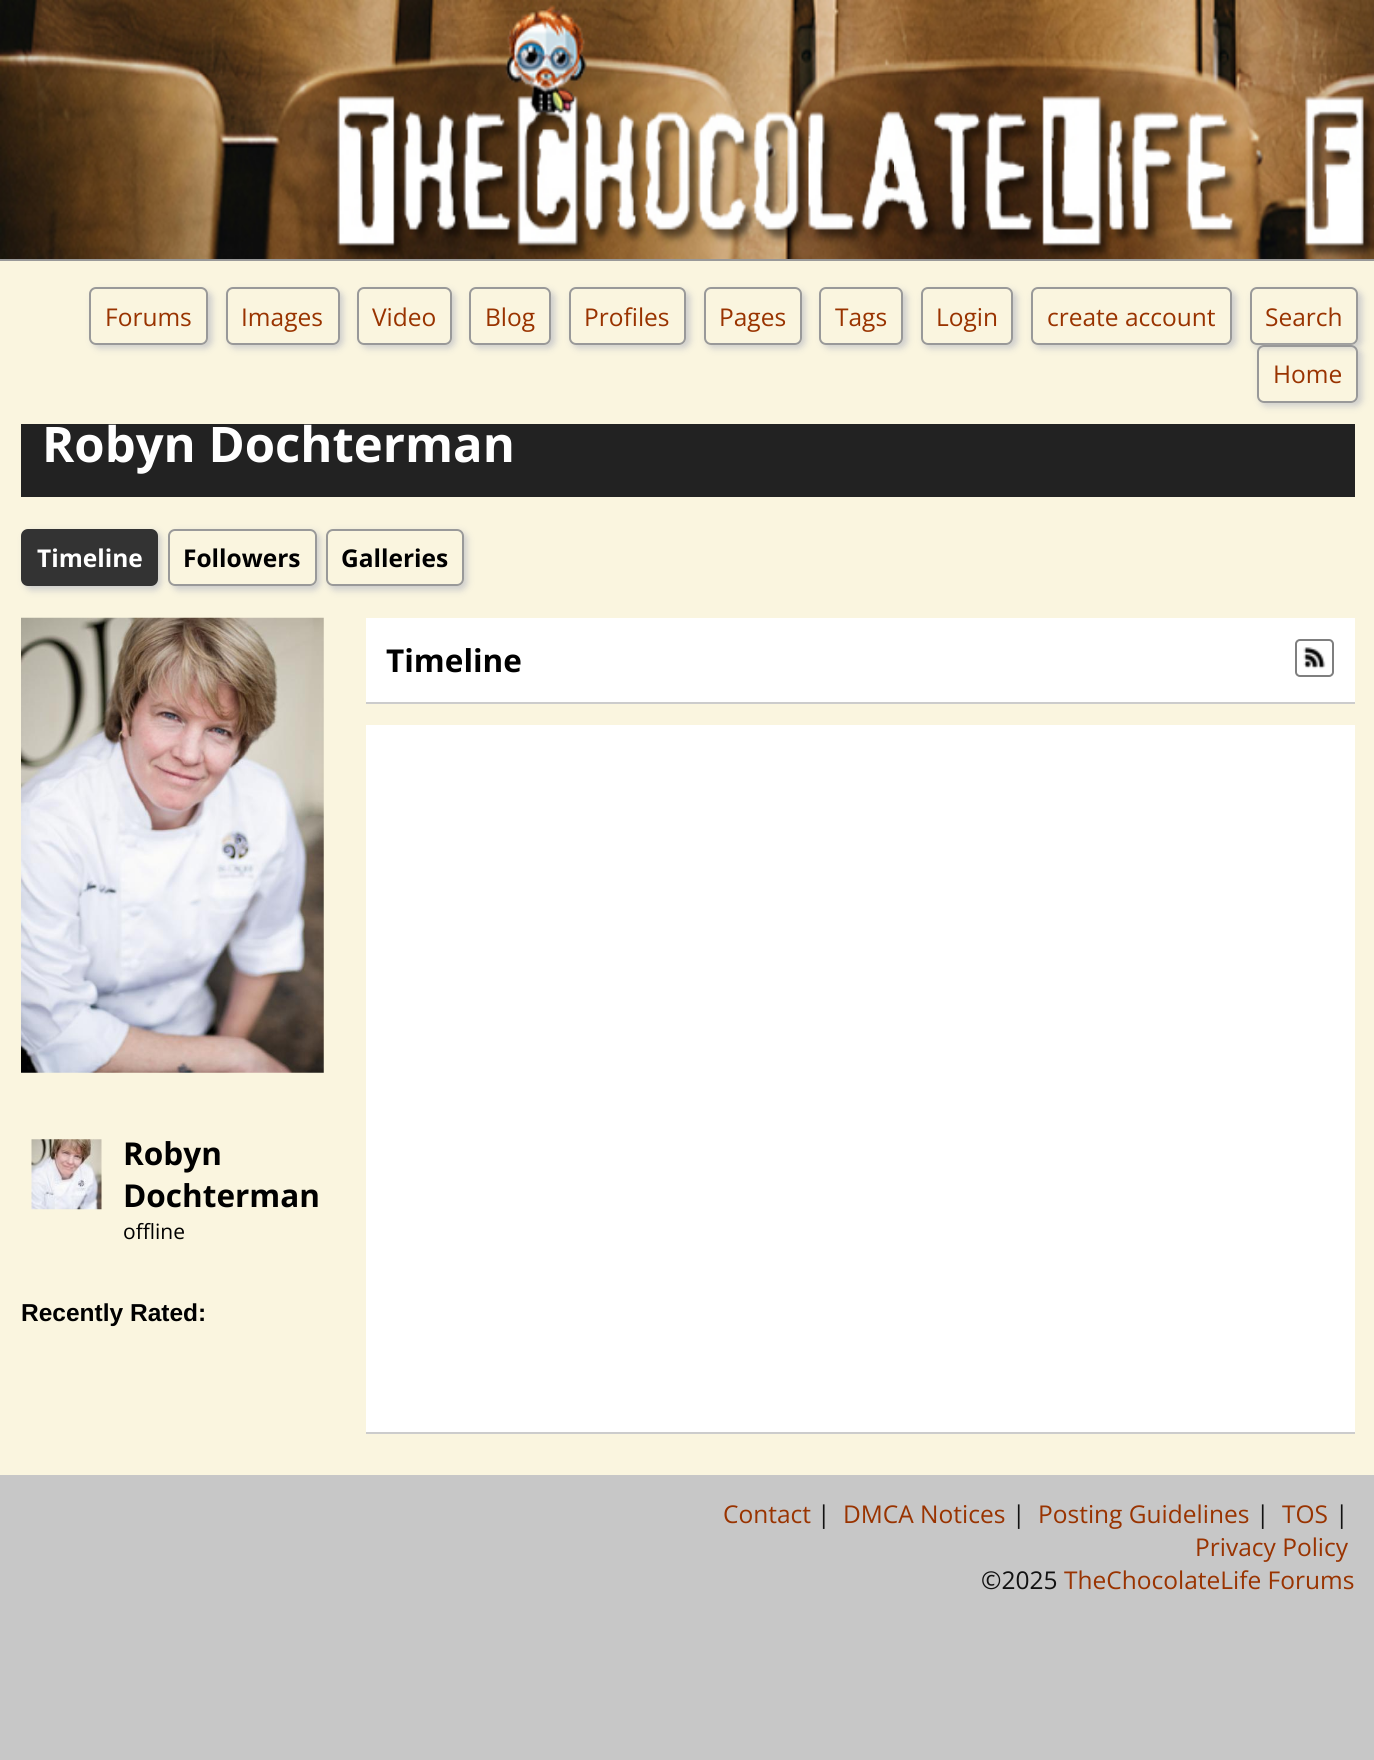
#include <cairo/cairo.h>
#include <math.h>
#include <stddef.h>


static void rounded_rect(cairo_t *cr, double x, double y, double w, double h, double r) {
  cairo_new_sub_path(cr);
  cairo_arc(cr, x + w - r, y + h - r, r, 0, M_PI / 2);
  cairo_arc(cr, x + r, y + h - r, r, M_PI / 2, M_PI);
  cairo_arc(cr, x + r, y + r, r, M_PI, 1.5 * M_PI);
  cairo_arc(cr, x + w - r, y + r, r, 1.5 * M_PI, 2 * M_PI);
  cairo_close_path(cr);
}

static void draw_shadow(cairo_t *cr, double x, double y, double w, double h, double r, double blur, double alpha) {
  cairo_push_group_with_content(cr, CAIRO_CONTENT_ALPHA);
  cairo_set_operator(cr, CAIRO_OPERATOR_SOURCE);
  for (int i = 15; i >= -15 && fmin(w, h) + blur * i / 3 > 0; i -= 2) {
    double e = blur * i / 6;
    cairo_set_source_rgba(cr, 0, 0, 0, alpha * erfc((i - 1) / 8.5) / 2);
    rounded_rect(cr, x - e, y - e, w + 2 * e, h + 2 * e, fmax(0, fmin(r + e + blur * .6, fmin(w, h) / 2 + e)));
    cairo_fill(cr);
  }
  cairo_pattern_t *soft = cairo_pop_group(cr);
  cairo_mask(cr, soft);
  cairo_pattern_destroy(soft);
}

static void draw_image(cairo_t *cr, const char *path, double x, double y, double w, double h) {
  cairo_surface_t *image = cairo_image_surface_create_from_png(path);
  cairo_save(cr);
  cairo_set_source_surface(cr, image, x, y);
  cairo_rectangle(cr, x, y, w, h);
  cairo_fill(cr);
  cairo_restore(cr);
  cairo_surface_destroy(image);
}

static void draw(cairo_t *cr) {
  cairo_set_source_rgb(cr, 199 / 255.0, 199 / 255.0, 199 / 255.0);
  cairo_paint(cr);
  draw_image(cr, "images/1.png", 0, 0, 1374, 259);
  cairo_set_source_rgb(cr, 153 / 255.0, 153 / 255.0, 153 / 255.0);
  cairo_rectangle(cr, 0, 259, 1374, 2);
  cairo_fill(cr);
  cairo_set_source_rgb(cr, 250 / 255.0, 245 / 255.0, 223 / 255.0);
  cairo_rectangle(cr, 0, 261, 1374, 1214);
  cairo_fill(cr);
  cairo_save(cr);
  cairo_set_fill_rule(cr, CAIRO_FILL_RULE_EVEN_ODD);
  cairo_new_path(cr);
  cairo_move_to(cr, 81, 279);
  cairo_line_to(cr, 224, 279);
  cairo_line_to(cr, 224, 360);
  cairo_line_to(cr, 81, 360);
  cairo_close_path(cr);
  cairo_move_to(cr, 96, 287);
  cairo_line_to(cr, 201, 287);
  cairo_curve_to(cr, 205, 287, 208, 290, 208, 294);
  cairo_line_to(cr, 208, 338);
  cairo_curve_to(cr, 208, 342, 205, 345, 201, 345);
  cairo_line_to(cr, 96, 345);
  cairo_curve_to(cr, 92, 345, 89, 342, 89, 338);
  cairo_line_to(cr, 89, 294);
  cairo_curve_to(cr, 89, 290, 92, 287, 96, 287);
  cairo_close_path(cr);
  cairo_clip(cr);
  cairo_set_source_rgb(cr, 204 / 255.0, 204 / 255.0, 204 / 255.0);
  draw_shadow(cr, 93, 291, 119, 57, 7, 3.5, 1);
  cairo_restore(cr);
  rounded_rect(cr, 90, 288, 117, 56, 6);
  cairo_set_source_rgb(cr, 153 / 255.0, 153 / 255.0, 153 / 255.0);
  cairo_stroke(cr);
  cairo_save(cr);
  cairo_set_fill_rule(cr, CAIRO_FILL_RULE_EVEN_ODD);
  cairo_new_path(cr);
  cairo_move_to(cr, 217, 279);
  cairo_line_to(cr, 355, 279);
  cairo_line_to(cr, 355, 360);
  cairo_line_to(cr, 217, 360);
  cairo_close_path(cr);
  cairo_move_to(cr, 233, 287);
  cairo_line_to(cr, 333, 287);
  cairo_curve_to(cr, 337, 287, 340, 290, 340, 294);
  cairo_line_to(cr, 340, 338);
  cairo_curve_to(cr, 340, 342, 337, 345, 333, 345);
  cairo_line_to(cr, 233, 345);
  cairo_curve_to(cr, 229, 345, 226, 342, 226, 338);
  cairo_line_to(cr, 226, 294);
  cairo_curve_to(cr, 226, 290, 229, 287, 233, 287);
  cairo_close_path(cr);
  cairo_clip(cr);
  cairo_set_source_rgb(cr, 204 / 255.0, 204 / 255.0, 204 / 255.0);
  draw_shadow(cr, 229, 291, 114, 57, 7, 3.5, 1);
  cairo_restore(cr);
  rounded_rect(cr, 227, 288, 112, 56, 6);
  cairo_stroke(cr);
  cairo_save(cr);
  cairo_set_fill_rule(cr, CAIRO_FILL_RULE_EVEN_ODD);
  cairo_new_path(cr);
  cairo_move_to(cr, 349, 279);
  cairo_line_to(cr, 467, 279);
  cairo_line_to(cr, 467, 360);
  cairo_line_to(cr, 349, 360);
  cairo_close_path(cr);
  cairo_move_to(cr, 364, 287);
  cairo_line_to(cr, 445, 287);
  cairo_curve_to(cr, 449, 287, 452, 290, 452, 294);
  cairo_line_to(cr, 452, 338);
  cairo_curve_to(cr, 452, 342, 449, 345, 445, 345);
  cairo_line_to(cr, 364, 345);
  cairo_curve_to(cr, 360, 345, 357, 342, 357, 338);
  cairo_line_to(cr, 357, 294);
  cairo_curve_to(cr, 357, 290, 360, 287, 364, 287);
  cairo_close_path(cr);
  cairo_clip(cr);
  cairo_set_source_rgb(cr, 204 / 255.0, 204 / 255.0, 204 / 255.0);
  draw_shadow(cr, 361, 291, 94, 57, 7, 3.5, 1);
  cairo_restore(cr);
  rounded_rect(cr, 358, 288, 93, 56, 6);
  cairo_stroke(cr);
  cairo_save(cr);
  cairo_set_fill_rule(cr, CAIRO_FILL_RULE_EVEN_ODD);
  cairo_new_path(cr);
  cairo_move_to(cr, 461, 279);
  cairo_line_to(cr, 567, 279);
  cairo_line_to(cr, 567, 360);
  cairo_line_to(cr, 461, 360);
  cairo_close_path(cr);
  cairo_move_to(cr, 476, 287);
  cairo_line_to(cr, 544, 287);
  cairo_curve_to(cr, 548, 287, 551, 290, 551, 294);
  cairo_line_to(cr, 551, 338);
  cairo_curve_to(cr, 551, 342, 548, 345, 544, 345);
  cairo_line_to(cr, 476, 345);
  cairo_curve_to(cr, 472, 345, 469, 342, 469, 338);
  cairo_line_to(cr, 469, 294);
  cairo_curve_to(cr, 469, 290, 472, 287, 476, 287);
  cairo_close_path(cr);
  cairo_clip(cr);
  cairo_set_source_rgb(cr, 204 / 255.0, 204 / 255.0, 204 / 255.0);
  draw_shadow(cr, 473, 291, 82, 57, 7, 3.5, 1);
  cairo_restore(cr);
  rounded_rect(cr, 470, 288, 80, 56, 6);
  cairo_stroke(cr);
  cairo_save(cr);
  cairo_set_fill_rule(cr, CAIRO_FILL_RULE_EVEN_ODD);
  cairo_new_path(cr);
  cairo_move_to(cr, 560, 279);
  cairo_line_to(cr, 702, 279);
  cairo_line_to(cr, 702, 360);
  cairo_line_to(cr, 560, 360);
  cairo_close_path(cr);
  cairo_move_to(cr, 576, 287);
  cairo_line_to(cr, 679, 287);
  cairo_curve_to(cr, 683, 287, 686, 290, 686, 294);
  cairo_line_to(cr, 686, 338);
  cairo_curve_to(cr, 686, 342, 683, 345, 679, 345);
  cairo_line_to(cr, 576, 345);
  cairo_curve_to(cr, 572, 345, 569, 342, 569, 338);
  cairo_line_to(cr, 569, 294);
  cairo_curve_to(cr, 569, 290, 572, 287, 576, 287);
  cairo_close_path(cr);
  cairo_clip(cr);
  cairo_set_source_rgb(cr, 204 / 255.0, 204 / 255.0, 204 / 255.0);
  draw_shadow(cr, 572, 291, 118, 57, 7, 3.5, 1);
  cairo_restore(cr);
  rounded_rect(cr, 570, 288, 115, 56, 6);
  cairo_stroke(cr);
  cairo_save(cr);
  cairo_set_fill_rule(cr, CAIRO_FILL_RULE_EVEN_ODD);
  cairo_new_path(cr);
  cairo_move_to(cr, 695, 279);
  cairo_line_to(cr, 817, 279);
  cairo_line_to(cr, 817, 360);
  cairo_line_to(cr, 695, 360);
  cairo_close_path(cr);
  cairo_move_to(cr, 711, 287);
  cairo_line_to(cr, 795, 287);
  cairo_curve_to(cr, 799, 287, 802, 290, 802, 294);
  cairo_line_to(cr, 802, 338);
  cairo_curve_to(cr, 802, 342, 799, 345, 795, 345);
  cairo_line_to(cr, 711, 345);
  cairo_curve_to(cr, 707, 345, 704, 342, 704, 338);
  cairo_line_to(cr, 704, 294);
  cairo_curve_to(cr, 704, 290, 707, 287, 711, 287);
  cairo_close_path(cr);
  cairo_clip(cr);
  cairo_set_source_rgb(cr, 204 / 255.0, 204 / 255.0, 204 / 255.0);
  draw_shadow(cr, 707, 291, 98, 57, 7, 3.5, 1);
  cairo_restore(cr);
  rounded_rect(cr, 705, 288, 96, 56, 6);
  cairo_stroke(cr);
  cairo_save(cr);
  cairo_set_fill_rule(cr, CAIRO_FILL_RULE_EVEN_ODD);
  cairo_new_path(cr);
  cairo_move_to(cr, 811, 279);
  cairo_line_to(cr, 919, 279);
  cairo_line_to(cr, 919, 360);
  cairo_line_to(cr, 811, 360);
  cairo_close_path(cr);
  cairo_move_to(cr, 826, 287);
  cairo_line_to(cr, 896, 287);
  cairo_curve_to(cr, 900, 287, 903, 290, 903, 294);
  cairo_line_to(cr, 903, 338);
  cairo_curve_to(cr, 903, 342, 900, 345, 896, 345);
  cairo_line_to(cr, 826, 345);
  cairo_curve_to(cr, 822, 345, 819, 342, 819, 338);
  cairo_line_to(cr, 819, 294);
  cairo_curve_to(cr, 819, 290, 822, 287, 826, 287);
  cairo_close_path(cr);
  cairo_clip(cr);
  cairo_set_source_rgb(cr, 204 / 255.0, 204 / 255.0, 204 / 255.0);
  draw_shadow(cr, 823, 291, 84, 57, 7, 3.5, 1);
  cairo_restore(cr);
  rounded_rect(cr, 820, 288, 82, 56, 6);
  cairo_stroke(cr);
  cairo_save(cr);
  cairo_set_fill_rule(cr, CAIRO_FILL_RULE_EVEN_ODD);
  cairo_new_path(cr);
  cairo_move_to(cr, 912, 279);
  cairo_line_to(cr, 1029, 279);
  cairo_line_to(cr, 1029, 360);
  cairo_line_to(cr, 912, 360);
  cairo_close_path(cr);
  cairo_move_to(cr, 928, 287);
  cairo_line_to(cr, 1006, 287);
  cairo_curve_to(cr, 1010, 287, 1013, 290, 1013, 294);
  cairo_line_to(cr, 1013, 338);
  cairo_curve_to(cr, 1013, 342, 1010, 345, 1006, 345);
  cairo_line_to(cr, 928, 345);
  cairo_curve_to(cr, 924, 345, 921, 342, 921, 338);
  cairo_line_to(cr, 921, 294);
  cairo_curve_to(cr, 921, 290, 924, 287, 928, 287);
  cairo_close_path(cr);
  cairo_clip(cr);
  cairo_set_source_rgb(cr, 204 / 255.0, 204 / 255.0, 204 / 255.0);
  draw_shadow(cr, 924, 291, 93, 57, 7, 3.5, 1);
  cairo_restore(cr);
  rounded_rect(cr, 922, 288, 90, 56, 6);
  cairo_stroke(cr);
  cairo_save(cr);
  cairo_set_fill_rule(cr, CAIRO_FILL_RULE_EVEN_ODD);
  cairo_new_path(cr);
  cairo_move_to(cr, 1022, 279);
  cairo_line_to(cr, 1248, 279);
  cairo_line_to(cr, 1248, 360);
  cairo_line_to(cr, 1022, 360);
  cairo_close_path(cr);
  cairo_move_to(cr, 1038, 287);
  cairo_line_to(cr, 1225, 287);
  cairo_curve_to(cr, 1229, 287, 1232, 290, 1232, 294);
  cairo_line_to(cr, 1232, 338);
  cairo_curve_to(cr, 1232, 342, 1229, 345, 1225, 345);
  cairo_line_to(cr, 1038, 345);
  cairo_curve_to(cr, 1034, 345, 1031, 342, 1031, 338);
  cairo_line_to(cr, 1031, 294);
  cairo_curve_to(cr, 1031, 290, 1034, 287, 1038, 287);
  cairo_close_path(cr);
  cairo_clip(cr);
  cairo_set_source_rgb(cr, 204 / 255.0, 204 / 255.0, 204 / 255.0);
  draw_shadow(cr, 1034, 291, 202, 57, 7, 3.5, 1);
  cairo_restore(cr);
  rounded_rect(cr, 1032, 288, 199, 56, 6);
  cairo_stroke(cr);
  cairo_save(cr);
  cairo_set_fill_rule(cr, CAIRO_FILL_RULE_EVEN_ODD);
  cairo_new_path(cr);
  cairo_move_to(cr, 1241, 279);
  cairo_line_to(cr, 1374, 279);
  cairo_line_to(cr, 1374, 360);
  cairo_line_to(cr, 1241, 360);
  cairo_close_path(cr);
  cairo_move_to(cr, 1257, 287);
  cairo_line_to(cr, 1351, 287);
  cairo_curve_to(cr, 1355, 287, 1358, 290, 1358, 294);
  cairo_line_to(cr, 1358, 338);
  cairo_curve_to(cr, 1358, 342, 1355, 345, 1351, 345);
  cairo_line_to(cr, 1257, 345);
  cairo_curve_to(cr, 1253, 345, 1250, 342, 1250, 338);
  cairo_line_to(cr, 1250, 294);
  cairo_curve_to(cr, 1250, 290, 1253, 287, 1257, 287);
  cairo_close_path(cr);
  cairo_clip(cr);
  cairo_set_source_rgb(cr, 204 / 255.0, 204 / 255.0, 204 / 255.0);
  draw_shadow(cr, 1253, 291, 109, 57, 7, 3.5, 1);
  cairo_restore(cr);
  rounded_rect(cr, 1251, 288, 106, 56, 6);
  cairo_stroke(cr);
  cairo_save(cr);
  cairo_set_fill_rule(cr, CAIRO_FILL_RULE_EVEN_ODD);
  cairo_new_path(cr);
  cairo_move_to(cr, 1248, 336);
  cairo_line_to(cr, 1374, 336);
  cairo_line_to(cr, 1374, 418);
  cairo_line_to(cr, 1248, 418);
  cairo_close_path(cr);
  cairo_move_to(cr, 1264, 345);
  cairo_line_to(cr, 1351, 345);
  cairo_curve_to(cr, 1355, 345, 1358, 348, 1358, 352);
  cairo_line_to(cr, 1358, 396);
  cairo_curve_to(cr, 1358, 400, 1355, 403, 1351, 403);
  cairo_line_to(cr, 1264, 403);
  cairo_curve_to(cr, 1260, 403, 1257, 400, 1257, 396);
  cairo_line_to(cr, 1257, 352);
  cairo_curve_to(cr, 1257, 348, 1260, 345, 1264, 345);
  cairo_close_path(cr);
  cairo_clip(cr);
  cairo_set_source_rgb(cr, 204 / 255.0, 204 / 255.0, 204 / 255.0);
  draw_shadow(cr, 1260, 348, 102, 58, 7, 3.5, 1);
  cairo_restore(cr);
  rounded_rect(cr, 1258, 346, 99, 56, 6);
  cairo_stroke(cr);
  cairo_set_source_rgb(cr, 34 / 255.0, 34 / 255.0, 34 / 255.0);
  cairo_rectangle(cr, 21, 424, 1334, 73);
  cairo_fill(cr);
  cairo_set_source_rgb(cr, 204 / 255.0, 204 / 255.0, 204 / 255.0);
  draw_shadow(cr, 25, 532, 136, 58, 7, 3.5, 1);
  cairo_set_source_rgb(cr, 51 / 255.0, 51 / 255.0, 51 / 255.0);
  rounded_rect(cr, 22, 530, 135, 55, 6);
  cairo_fill_preserve(cr);
  cairo_stroke(cr);
  cairo_save(cr);
  cairo_set_fill_rule(cr, CAIRO_FILL_RULE_EVEN_ODD);
  cairo_new_path(cr);
  cairo_move_to(cr, 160, 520);
  cairo_line_to(cr, 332, 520);
  cairo_line_to(cr, 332, 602);
  cairo_line_to(cr, 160, 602);
  cairo_close_path(cr);
  cairo_move_to(cr, 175, 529);
  cairo_line_to(cr, 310, 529);
  cairo_curve_to(cr, 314, 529, 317, 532, 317, 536);
  cairo_line_to(cr, 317, 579);
  cairo_curve_to(cr, 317, 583, 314, 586, 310, 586);
  cairo_line_to(cr, 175, 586);
  cairo_curve_to(cr, 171, 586, 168, 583, 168, 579);
  cairo_line_to(cr, 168, 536);
  cairo_curve_to(cr, 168, 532, 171, 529, 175, 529);
  cairo_close_path(cr);
  cairo_clip(cr);
  cairo_set_source_rgb(cr, 204 / 255.0, 204 / 255.0, 204 / 255.0);
  draw_shadow(cr, 172, 532, 148, 58, 7, 3.5, 1);
  cairo_restore(cr);
  rounded_rect(cr, 169, 530, 147, 55, 6);
  cairo_set_source_rgb(cr, 153 / 255.0, 153 / 255.0, 153 / 255.0);
  cairo_stroke(cr);
  cairo_save(cr);
  cairo_set_fill_rule(cr, CAIRO_FILL_RULE_EVEN_ODD);
  cairo_new_path(cr);
  cairo_move_to(cr, 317, 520);
  cairo_line_to(cr, 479, 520);
  cairo_line_to(cr, 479, 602);
  cairo_line_to(cr, 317, 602);
  cairo_close_path(cr);
  cairo_move_to(cr, 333, 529);
  cairo_line_to(cr, 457, 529);
  cairo_curve_to(cr, 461, 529, 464, 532, 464, 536);
  cairo_line_to(cr, 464, 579);
  cairo_curve_to(cr, 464, 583, 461, 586, 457, 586);
  cairo_line_to(cr, 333, 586);
  cairo_curve_to(cr, 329, 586, 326, 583, 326, 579);
  cairo_line_to(cr, 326, 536);
  cairo_curve_to(cr, 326, 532, 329, 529, 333, 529);
  cairo_close_path(cr);
  cairo_clip(cr);
  cairo_set_source_rgb(cr, 204 / 255.0, 204 / 255.0, 204 / 255.0);
  draw_shadow(cr, 329, 532, 138, 58, 7, 3.5, 1);
  cairo_restore(cr);
  rounded_rect(cr, 327, 530, 136, 55, 6);
  cairo_stroke(cr);
  cairo_set_source_rgb(cr, 1, 1, 1);
  cairo_rectangle(cr, 366, 618, 989, 84);
  cairo_fill(cr);
  cairo_set_source_rgb(cr, 204 / 255.0, 204 / 255.0, 204 / 255.0);
  cairo_rectangle(cr, 366, 702, 989, 2);
  cairo_fill(cr);
  rounded_rect(cr, 1296, 640, 37, 36, 4);
  cairo_set_source_rgb(cr, 127 / 255.0, 127 / 255.0, 127 / 255.0);
  cairo_stroke(cr);
  draw_image(cr, "images/2.png", 1303, 647, 23, 22);
  cairo_set_source_rgb(cr, 1, 1, 1);
  cairo_rectangle(cr, 366, 725, 989, 707);
  cairo_fill(cr);
  cairo_set_source_rgb(cr, 204 / 255.0, 204 / 255.0, 204 / 255.0);
  cairo_rectangle(cr, 366, 1432, 989, 2);
  cairo_fill(cr);
  draw_image(cr, "images/3.png", 21, 617, 303, 456);
  draw_image(cr, "images/4.png", 31, 1139, 71, 71);
  cairo_select_font_face(cr, "Open Sans", CAIRO_FONT_SLANT_NORMAL, CAIRO_FONT_WEIGHT_NORMAL);
  cairo_set_font_size(cr, 24.5);
  cairo_set_source_rgb(cr, 153 / 255.0, 51 / 255.0, 0);
  cairo_move_to(cr, 105, 326);
  cairo_show_text(cr, "Forums");
  cairo_move_to(cr, 241, 326);
  cairo_show_text(cr, "Images");
  cairo_move_to(cr, 372, 326);
  cairo_show_text(cr, "Video");
  cairo_move_to(cr, 485, 326);
  cairo_show_text(cr, "Blog");
  cairo_move_to(cr, 584, 326);
  cairo_show_text(cr, "Profiles");
  cairo_move_to(cr, 719, 326);
  cairo_show_text(cr, "Pages");
  cairo_move_to(cr, 835, 326);
  cairo_show_text(cr, "Tags");
  cairo_move_to(cr, 936, 326);
  cairo_show_text(cr, "Login");
  cairo_move_to(cr, 1047, 326);
  cairo_show_text(cr, "create account");
  cairo_move_to(cr, 1265, 326);
  cairo_show_text(cr, "Search");
  cairo_move_to(cr, 1273, 383);
  cairo_show_text(cr, "Home");
  cairo_select_font_face(cr, "Open Sans", CAIRO_FONT_SLANT_NORMAL, CAIRO_FONT_WEIGHT_BOLD);
  cairo_set_font_size(cr, 49);
  cairo_set_source_rgb(cr, 1, 1, 1);
  cairo_move_to(cr, 42, 462);
  cairo_show_text(cr, "Robyn Dochterman");
  cairo_set_font_size(cr, 24.5);
  cairo_move_to(cr, 37, 567);
  cairo_show_text(cr, "Timeline");
  cairo_set_source_rgb(cr, 0, 0, 0);
  cairo_move_to(cr, 183, 567);
  cairo_show_text(cr, "Followers");
  cairo_move_to(cr, 341, 567);
  cairo_show_text(cr, "Galleries");
  cairo_set_font_size(cr, 31.5);
  cairo_move_to(cr, 386, 672);
  cairo_show_text(cr, "Timeline");
  cairo_move_to(cr, 123, 1165);
  cairo_show_text(cr, "Robyn");
  cairo_move_to(cr, 123, 1207);
  cairo_show_text(cr, "Dochterman");
  cairo_select_font_face(cr, "Open Sans", CAIRO_FONT_SLANT_NORMAL, CAIRO_FONT_WEIGHT_NORMAL);
  cairo_set_font_size(cr, 21);
  cairo_move_to(cr, 123, 1239);
  cairo_show_text(cr, "offline");
  cairo_select_font_face(cr, "Liberation Sans", CAIRO_FONT_SLANT_NORMAL, CAIRO_FONT_WEIGHT_BOLD);
  cairo_set_font_size(cr, 24.5);
  cairo_move_to(cr, 21, 1321);
  cairo_show_text(cr, "Recently Rated:");
  cairo_select_font_face(cr, "Open Sans", CAIRO_FONT_SLANT_NORMAL, CAIRO_FONT_WEIGHT_NORMAL);
  cairo_set_source_rgb(cr, 153 / 255.0, 51 / 255.0, 0);
  cairo_move_to(cr, 723, 1523);
  cairo_show_text(cr, "Contact");
  cairo_set_source_rgb(cr, 17 / 255.0, 17 / 255.0, 17 / 255.0);
  cairo_move_to(cr, 817, 1523);
  cairo_show_text(cr, "|");
  cairo_set_source_rgb(cr, 153 / 255.0, 51 / 255.0, 0);
  cairo_move_to(cr, 843, 1523);
  cairo_show_text(cr, "DMCA Notices");
  cairo_set_source_rgb(cr, 17 / 255.0, 17 / 255.0, 17 / 255.0);
  cairo_move_to(cr, 1012, 1523);
  cairo_show_text(cr, "|");
  cairo_set_source_rgb(cr, 153 / 255.0, 51 / 255.0, 0);
  cairo_move_to(cr, 1038, 1523);
  cairo_show_text(cr, "Posting Guidelines");
  cairo_set_source_rgb(cr, 17 / 255.0, 17 / 255.0, 17 / 255.0);
  cairo_move_to(cr, 1256, 1523);
  cairo_show_text(cr, "|");
  cairo_set_source_rgb(cr, 153 / 255.0, 51 / 255.0, 0);
  cairo_move_to(cr, 1282, 1523);
  cairo_show_text(cr, "TOS");
  cairo_set_source_rgb(cr, 17 / 255.0, 17 / 255.0, 17 / 255.0);
  cairo_move_to(cr, 1335, 1523);
  cairo_show_text(cr, "|");
  cairo_set_source_rgb(cr, 153 / 255.0, 51 / 255.0, 0);
  cairo_move_to(cr, 1195, 1556);
  cairo_show_text(cr, "Privacy Policy");
  cairo_set_source_rgb(cr, 17 / 255.0, 17 / 255.0, 17 / 255.0);
  cairo_move_to(cr, 981, 1589);
  cairo_show_text(cr, "©2025");
  cairo_set_source_rgb(cr, 153 / 255.0, 51 / 255.0, 0);
  cairo_move_to(cr, 1064, 1589);
  cairo_show_text(cr, "TheChocolateLife Forums");
}

int main(void) {
  cairo_surface_t *surface = cairo_image_surface_create(CAIRO_FORMAT_RGB24, 1374, 1760);
  cairo_t *cr = cairo_create(surface);
  cairo_font_options_t *options = cairo_font_options_create();
  cairo_font_options_set_hint_metrics(options, CAIRO_HINT_METRICS_OFF);
  cairo_font_options_set_hint_style(options, CAIRO_HINT_STYLE_NONE);
  cairo_set_font_options(cr, options);
  cairo_set_miter_limit(cr, 4);
  draw(cr);
  cairo_surface_write_to_png(surface, "out.png");
  cairo_font_options_destroy(options);
  cairo_destroy(cr);
  cairo_surface_destroy(surface);
  return 0;
}
